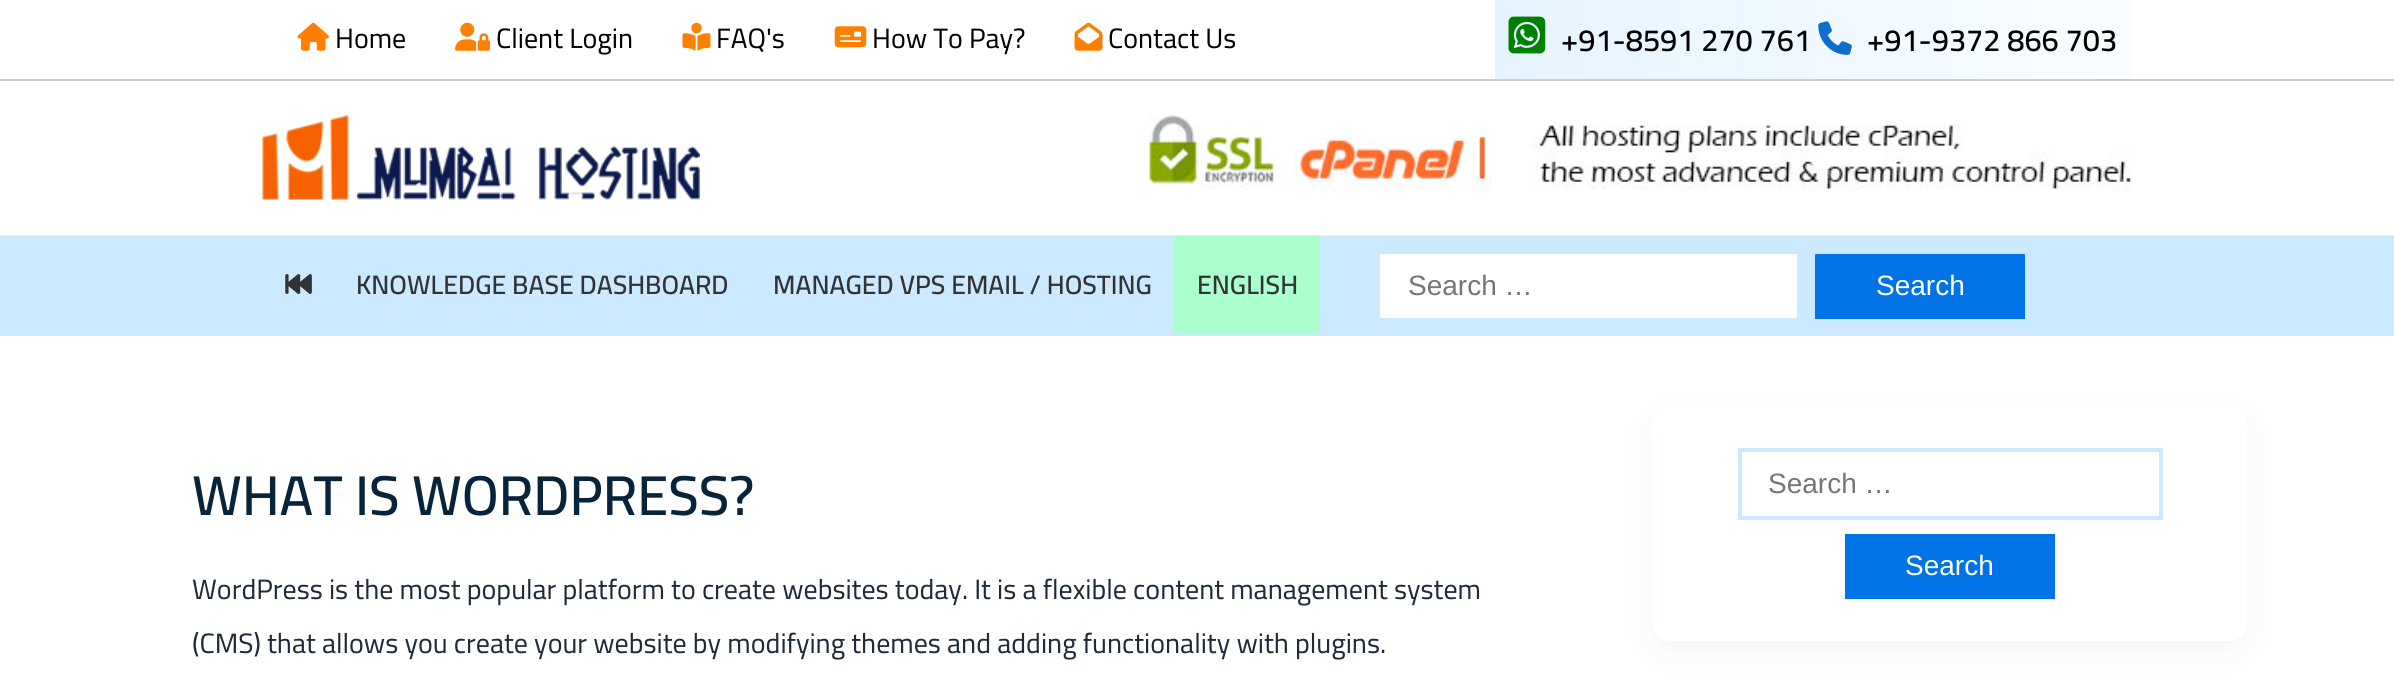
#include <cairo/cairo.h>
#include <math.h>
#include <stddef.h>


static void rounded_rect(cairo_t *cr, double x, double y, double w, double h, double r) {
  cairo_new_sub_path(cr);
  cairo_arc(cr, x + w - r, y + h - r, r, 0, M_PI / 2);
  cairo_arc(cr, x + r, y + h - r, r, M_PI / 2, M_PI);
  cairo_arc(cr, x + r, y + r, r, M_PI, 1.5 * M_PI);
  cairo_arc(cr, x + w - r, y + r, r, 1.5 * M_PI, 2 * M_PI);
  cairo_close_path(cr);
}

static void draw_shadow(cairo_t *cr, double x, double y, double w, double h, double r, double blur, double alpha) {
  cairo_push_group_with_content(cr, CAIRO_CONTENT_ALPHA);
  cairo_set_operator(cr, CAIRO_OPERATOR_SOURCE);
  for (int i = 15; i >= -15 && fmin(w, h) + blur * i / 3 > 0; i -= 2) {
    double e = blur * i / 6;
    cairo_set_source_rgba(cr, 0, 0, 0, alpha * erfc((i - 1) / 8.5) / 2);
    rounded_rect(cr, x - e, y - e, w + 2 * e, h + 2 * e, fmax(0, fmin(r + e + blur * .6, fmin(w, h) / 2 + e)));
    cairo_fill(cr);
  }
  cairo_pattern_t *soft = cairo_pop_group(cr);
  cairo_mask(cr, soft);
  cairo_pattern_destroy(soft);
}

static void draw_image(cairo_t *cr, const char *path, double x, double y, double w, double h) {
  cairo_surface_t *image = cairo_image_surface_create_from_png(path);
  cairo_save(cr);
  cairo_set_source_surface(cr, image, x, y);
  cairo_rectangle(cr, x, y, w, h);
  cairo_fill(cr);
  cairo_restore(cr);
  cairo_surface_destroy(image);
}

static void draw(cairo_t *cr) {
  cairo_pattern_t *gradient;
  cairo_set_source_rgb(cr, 1, 1, 1);
  cairo_paint(cr);
  cairo_set_source_rgb(cr, 204 / 255.0, 204 / 255.0, 204 / 255.0);
  cairo_rectangle(cr, 0, 79, 2394, 2);
  cairo_fill(cr);
  draw_image(cr, "images/1.png", 297, 22, 32, 29);
  draw_image(cr, "images/2.png", 455, 22, 35, 29);
  draw_image(cr, "images/3.png", 682, 22, 29, 29);
  draw_image(cr, "images/4.png", 834, 26, 33, 22);
  draw_image(cr, "images/5.png", 1074, 22, 29, 29);
  gradient = cairo_pattern_create_linear(1495, 39, 2132, 39);
  cairo_pattern_add_color_stop_rgba(gradient, 0, 230 / 255.0, 244 / 255.0, 1, 1);
  cairo_pattern_add_color_stop_rgba(gradient, 1, 249 / 255.0, 253 / 255.0, 1, 1);
  cairo_set_source(cr, gradient);
  cairo_pattern_destroy(gradient);
  cairo_rectangle(cr, 1495, 0, 637, 79);
  cairo_fill(cr);
  draw_image(cr, "images/6.png", 1508, 16, 38, 38);
  draw_image(cr, "images/7.png", 1818, 21, 34, 34);
  cairo_set_source_rgb(cr, 238 / 255.0, 238 / 255.0, 238 / 255.0);
  cairo_rectangle(cr, 0, 235, 2394, 1);
  cairo_fill(cr);
  draw_image(cr, "images/8.png", 262, 115, 438, 85);
  draw_image(cr, "images/9.png", 1149, 115, 983, 75);
  cairo_set_source_rgb(cr, 204 / 255.0, 233 / 255.0, 1);
  cairo_rectangle(cr, 0, 236, 2394, 100);
  cairo_fill(cr);
  draw_image(cr, "images/10.png", 285, 274, 27, 20);
  cairo_set_source_rgb(cr, 170 / 255.0, 1, 204 / 255.0);
  cairo_rectangle(cr, 1174, 236, 146, 98);
  cairo_fill(cr);
  cairo_set_source_rgb(cr, 1, 1, 1);
  cairo_rectangle(cr, 1380, 254, 417, 64);
  cairo_fill(cr);
  cairo_set_source_rgb(cr, 0, 115 / 255.0, 230 / 255.0);
  cairo_rectangle(cr, 1815, 254, 210, 65);
  cairo_fill(cr);
  cairo_set_source_rgb(cr, 13 / 255.0, 38 / 255.0, 63 / 255.0);
  draw_shadow(cr, 1652, 417, 595, 234, 18, 16, 0.05);
  cairo_set_source_rgb(cr, 1, 1, 1);
  rounded_rect(cr, 1652, 406, 595, 235, 18);
  cairo_fill(cr);
  cairo_rectangle(cr, 1740, 450, 421, 68);
  cairo_set_source_rgb(cr, 204 / 255.0, 233 / 255.0, 1);
  cairo_set_line_width(cr, 4);
  cairo_stroke(cr);
  cairo_set_source_rgb(cr, 0, 115 / 255.0, 230 / 255.0);
  cairo_rectangle(cr, 1845, 534, 210, 65);
  cairo_fill(cr);
  cairo_select_font_face(cr, "Cairo", CAIRO_FONT_SLANT_NORMAL, CAIRO_FONT_WEIGHT_NORMAL);
  cairo_set_font_size(cr, 28);
  cairo_set_source_rgb(cr, 0, 0, 0);
  cairo_move_to(cr, 335, 48);
  cairo_show_text(cr, "Home");
  cairo_move_to(cr, 496, 48);
  cairo_show_text(cr, "Client Login");
  cairo_move_to(cr, 716, 48);
  cairo_show_text(cr, "FAQ's");
  cairo_move_to(cr, 872, 48);
  cairo_show_text(cr, "How To Pay?");
  cairo_move_to(cr, 1108, 48);
  cairo_show_text(cr, "Contact Us");
  cairo_select_font_face(cr, "Cairo SemiBold", CAIRO_FONT_SLANT_NORMAL, CAIRO_FONT_WEIGHT_NORMAL);
  cairo_set_font_size(cr, 30.75);
  cairo_move_to(cr, 1561, 51);
  cairo_show_text(cr, "+91-8591 270 761");
  cairo_move_to(cr, 1867, 51);
  cairo_show_text(cr, "+91-9372 866 703");
  cairo_set_font_size(cr, 26.6);
  cairo_set_source_rgb(cr, 51 / 255.0, 51 / 255.0, 51 / 255.0);
  cairo_move_to(cr, 356, 294);
  cairo_show_text(cr, "KNOWLEDGE BASE DASHBOARD");
  cairo_move_to(cr, 773, 294);
  cairo_show_text(cr, "MANAGED VPS EMAIL / HOSTING");
  cairo_move_to(cr, 1197, 294);
  cairo_show_text(cr, "ENGLISH");
  cairo_select_font_face(cr, "Liberation Sans", CAIRO_FONT_SLANT_NORMAL, CAIRO_FONT_WEIGHT_NORMAL);
  cairo_set_font_size(cr, 28);
  cairo_set_source_rgb(cr, 117 / 255.0, 117 / 255.0, 117 / 255.0);
  cairo_move_to(cr, 1408, 295);
  cairo_show_text(cr, "Search …");
  cairo_set_source_rgb(cr, 1, 1, 1);
  cairo_move_to(cr, 1876, 295);
  cairo_show_text(cr, "Search");
  cairo_select_font_face(cr, "Cairo SemiBold", CAIRO_FONT_SLANT_NORMAL, CAIRO_FONT_WEIGHT_NORMAL);
  cairo_set_font_size(cr, 56);
  cairo_set_source_rgb(cr, 7 / 255.0, 36 / 255.0, 58 / 255.0);
  cairo_move_to(cr, 192, 515);
  cairo_show_text(cr, "WHAT IS WORDPRESS?");
  cairo_select_font_face(cr, "Cairo", CAIRO_FONT_SLANT_NORMAL, CAIRO_FONT_WEIGHT_NORMAL);
  cairo_set_font_size(cr, 28);
  cairo_set_source_rgb(cr, 31 / 255.0, 42 / 255.0, 58 / 255.0);
  cairo_move_to(cr, 192, 599);
  cairo_show_text(cr, "WordPress is the most popular platform to create websites today. It is a flexible content management system");
  cairo_move_to(cr, 192, 653);
  cairo_show_text(cr, "(CMS) that allows you create your website by modifying themes and adding functionality with plugins.");
  cairo_select_font_face(cr, "Liberation Sans", CAIRO_FONT_SLANT_NORMAL, CAIRO_FONT_WEIGHT_NORMAL);
  cairo_set_source_rgb(cr, 117 / 255.0, 117 / 255.0, 117 / 255.0);
  cairo_move_to(cr, 1768, 493);
  cairo_show_text(cr, "Search …");
  cairo_set_source_rgb(cr, 1, 1, 1);
  cairo_move_to(cr, 1905, 575);
  cairo_show_text(cr, "Search");
}

int main(void) {
  cairo_surface_t *surface = cairo_image_surface_create(CAIRO_FORMAT_RGB24, 2394, 677);
  cairo_t *cr = cairo_create(surface);
  cairo_font_options_t *options = cairo_font_options_create();
  cairo_font_options_set_hint_metrics(options, CAIRO_HINT_METRICS_OFF);
  cairo_font_options_set_hint_style(options, CAIRO_HINT_STYLE_NONE);
  cairo_set_font_options(cr, options);
  cairo_set_miter_limit(cr, 4);
  draw(cr);
  cairo_surface_write_to_png(surface, "out.png");
  cairo_font_options_destroy(options);
  cairo_destroy(cr);
  cairo_surface_destroy(surface);
  return 0;
}
